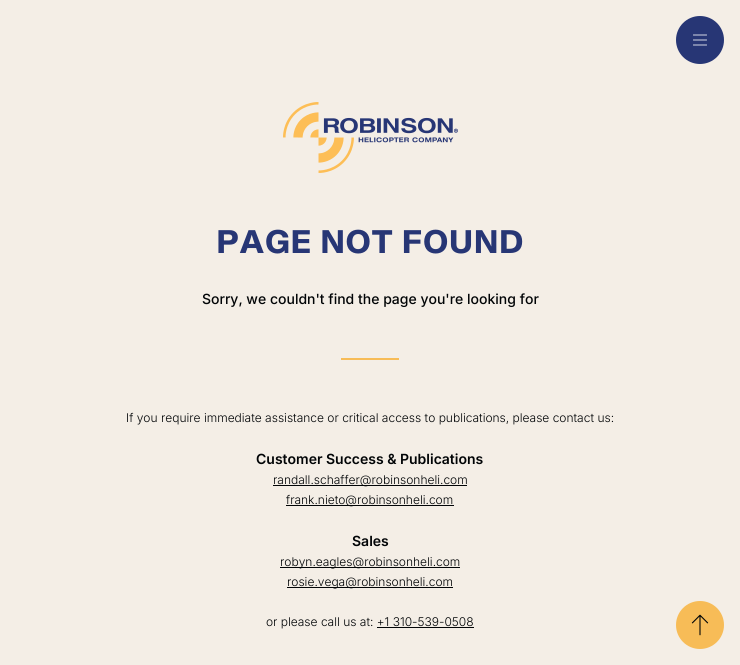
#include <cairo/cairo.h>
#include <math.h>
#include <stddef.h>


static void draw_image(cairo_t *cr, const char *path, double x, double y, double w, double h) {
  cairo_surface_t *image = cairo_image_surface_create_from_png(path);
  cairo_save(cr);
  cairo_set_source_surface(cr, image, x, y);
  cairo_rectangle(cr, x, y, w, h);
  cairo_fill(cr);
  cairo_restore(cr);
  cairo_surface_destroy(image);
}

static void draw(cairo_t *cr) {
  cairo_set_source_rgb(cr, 244 / 255.0, 238 / 255.0, 230 / 255.0);
  cairo_paint(cr);
  cairo_set_source_rgb(cr, 39 / 255.0, 54 / 255.0, 117 / 255.0);
  cairo_arc(cr, 700, 40, 24, 0, 2 * M_PI);
  cairo_fill(cr);
  draw_image(cr, "images/1.png", 693, 34, 14, 12);
  draw_image(cr, "images/2.png", 283, 102, 175, 71);
  cairo_set_source_rgb(cr, 247 / 255.0, 188 / 255.0, 87 / 255.0);
  cairo_rectangle(cr, 341, 358, 58, 2);
  cairo_fill(cr);
  cairo_set_source_rgb(cr, 1 / 255.0, 4 / 255.0, 6 / 255.0);
  cairo_rectangle(cr, 273, 485, 194, 1);
  cairo_fill(cr);
  cairo_rectangle(cr, 286, 505, 168, 1);
  cairo_fill(cr);
  cairo_rectangle(cr, 280, 567, 180, 1);
  cairo_fill(cr);
  cairo_rectangle(cr, 287, 587, 166, 1);
  cairo_fill(cr);
  cairo_rectangle(cr, 377, 627, 97, 1);
  cairo_fill(cr);
  cairo_set_source_rgb(cr, 247 / 255.0, 188 / 255.0, 87 / 255.0);
  cairo_arc(cr, 700, 625, 24, 0, 2 * M_PI);
  cairo_fill(cr);
  draw_image(cr, "images/3.png", 691, 614, 18, 22);
  cairo_select_font_face(cr, "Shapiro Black", CAIRO_FONT_SLANT_NORMAL, CAIRO_FONT_WEIGHT_NORMAL);
  cairo_set_font_size(cr, 32);
  cairo_set_source_rgb(cr, 39 / 255.0, 54 / 255.0, 117 / 255.0);
  cairo_move_to(cr, 216, 253);
  cairo_show_text(cr, "PAGE NOT FOUND");
  cairo_select_font_face(cr, "Inter Medium", CAIRO_FONT_SLANT_NORMAL, CAIRO_FONT_WEIGHT_NORMAL);
  cairo_set_font_size(cr, 14);
  cairo_set_source_rgb(cr, 1 / 255.0, 4 / 255.0, 6 / 255.0);
  cairo_move_to(cr, 202, 304);
  cairo_show_text(cr, "Sorry, we couldn't find the page you're looking for");
  cairo_select_font_face(cr, "Inter Light", CAIRO_FONT_SLANT_NORMAL, CAIRO_FONT_WEIGHT_NORMAL);
  cairo_set_font_size(cr, 12);
  cairo_move_to(cr, 126, 422);
  cairo_show_text(cr, "If you require immediate assistance or critical access to publications, please contact us:");
  cairo_select_font_face(cr, "Inter SemiBold", CAIRO_FONT_SLANT_NORMAL, CAIRO_FONT_WEIGHT_NORMAL);
  cairo_set_font_size(cr, 14);
  cairo_move_to(cr, 256, 464);
  cairo_show_text(cr, "Customer Success & Publications");
  cairo_select_font_face(cr, "Inter Light", CAIRO_FONT_SLANT_NORMAL, CAIRO_FONT_WEIGHT_NORMAL);
  cairo_set_font_size(cr, 12);
  cairo_move_to(cr, 273, 484);
  cairo_show_text(cr, "randall.schaffer@robinsonheli.com");
  cairo_move_to(cr, 286, 504);
  cairo_show_text(cr, "frank.nieto@robinsonheli.com");
  cairo_select_font_face(cr, "Inter SemiBold", CAIRO_FONT_SLANT_NORMAL, CAIRO_FONT_WEIGHT_NORMAL);
  cairo_set_font_size(cr, 14);
  cairo_move_to(cr, 352, 546);
  cairo_show_text(cr, "Sales");
  cairo_select_font_face(cr, "Inter Light", CAIRO_FONT_SLANT_NORMAL, CAIRO_FONT_WEIGHT_NORMAL);
  cairo_set_font_size(cr, 12);
  cairo_move_to(cr, 280, 566);
  cairo_show_text(cr, "robyn.eagles@robinsonheli.com");
  cairo_move_to(cr, 287, 586);
  cairo_show_text(cr, "rosie.vega@robinsonheli.com");
  cairo_move_to(cr, 266, 626);
  cairo_show_text(cr, "or please call us at: +1 310-539-0508");
}

int main(void) {
  cairo_surface_t *surface = cairo_image_surface_create(CAIRO_FORMAT_RGB24, 740, 665);
  cairo_t *cr = cairo_create(surface);
  cairo_font_options_t *options = cairo_font_options_create();
  cairo_font_options_set_hint_metrics(options, CAIRO_HINT_METRICS_OFF);
  cairo_font_options_set_hint_style(options, CAIRO_HINT_STYLE_NONE);
  cairo_set_font_options(cr, options);
  cairo_set_miter_limit(cr, 4);
  draw(cr);
  cairo_surface_write_to_png(surface, "out.png");
  cairo_font_options_destroy(options);
  cairo_destroy(cr);
  cairo_surface_destroy(surface);
  return 0;
}
